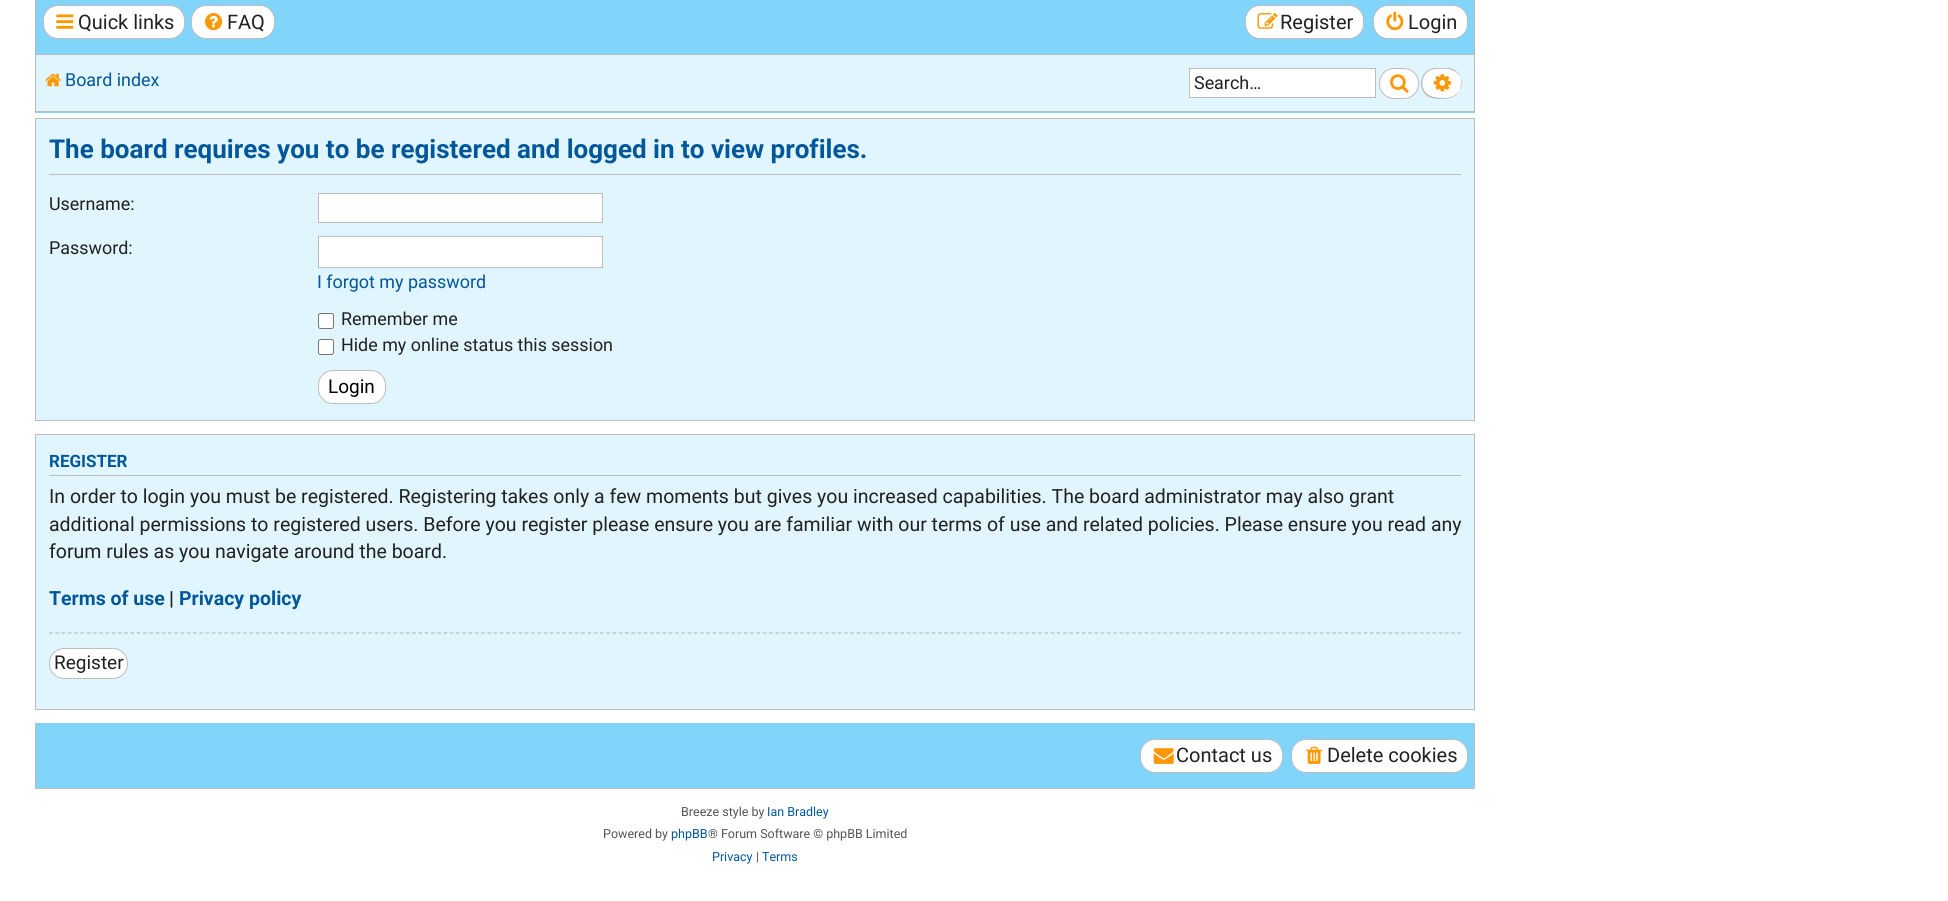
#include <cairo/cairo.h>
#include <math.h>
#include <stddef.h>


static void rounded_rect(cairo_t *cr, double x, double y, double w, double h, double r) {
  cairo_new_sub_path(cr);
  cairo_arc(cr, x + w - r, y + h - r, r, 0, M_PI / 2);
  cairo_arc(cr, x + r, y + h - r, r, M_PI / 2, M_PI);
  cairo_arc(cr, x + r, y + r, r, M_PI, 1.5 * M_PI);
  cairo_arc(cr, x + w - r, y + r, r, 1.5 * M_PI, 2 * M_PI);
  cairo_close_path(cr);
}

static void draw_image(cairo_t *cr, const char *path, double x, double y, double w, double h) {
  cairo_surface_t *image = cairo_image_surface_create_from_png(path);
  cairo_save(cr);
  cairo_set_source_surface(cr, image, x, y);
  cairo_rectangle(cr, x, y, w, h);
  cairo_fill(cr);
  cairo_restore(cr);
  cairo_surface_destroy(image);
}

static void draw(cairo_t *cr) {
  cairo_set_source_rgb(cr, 1, 1, 1);
  cairo_paint(cr);
  cairo_set_source_rgb(cr, 129 / 255.0, 212 / 255.0, 250 / 255.0);
  cairo_rectangle(cr, 36, 0, 1438, 113);
  cairo_fill(cr);
  cairo_set_source_rgb(cr, 189 / 255.0, 189 / 255.0, 189 / 255.0);
  cairo_rectangle(cr, 1474, 0, 1, 113);
  cairo_fill(cr);
  cairo_rectangle(cr, 35, 111, 1440, 1);
  cairo_fill(cr);
  cairo_rectangle(cr, 35, 0, 1, 113);
  cairo_fill(cr);
  cairo_set_source_rgb(cr, 1, 1, 1);
  rounded_rect(cr, 43.5, 5.5, 141, 33, 14.5);
  cairo_fill_preserve(cr);
  cairo_set_source_rgb(cr, 189 / 255.0, 189 / 255.0, 189 / 255.0);
  cairo_set_line_width(cr, 1);
  cairo_stroke(cr);
  draw_image(cr, "images/1.png", 56, 14, 18, 15);
  cairo_set_source_rgb(cr, 1, 1, 1);
  rounded_rect(cr, 191.5, 5.5, 83, 33, 14.5);
  cairo_fill_preserve(cr);
  cairo_set_source_rgb(cr, 189 / 255.0, 189 / 255.0, 189 / 255.0);
  cairo_stroke(cr);
  draw_image(cr, "images/2.png", 205, 13, 18, 18);
  cairo_set_source_rgb(cr, 1, 1, 1);
  rounded_rect(cr, 1245.5, 5.5, 118, 33, 14.5);
  cairo_fill_preserve(cr);
  cairo_set_source_rgb(cr, 189 / 255.0, 189 / 255.0, 189 / 255.0);
  cairo_stroke(cr);
  draw_image(cr, "images/3.png", 1257, 13, 21, 16);
  cairo_set_source_rgb(cr, 1, 1, 1);
  rounded_rect(cr, 1373.5, 5.5, 94, 33, 14.5);
  cairo_fill_preserve(cr);
  cairo_set_source_rgb(cr, 189 / 255.0, 189 / 255.0, 189 / 255.0);
  cairo_stroke(cr);
  draw_image(cr, "images/4.png", 1386, 11, 18, 20);
  cairo_set_source_rgb(cr, 225 / 255.0, 245 / 255.0, 254 / 255.0);
  cairo_rectangle(cr, 36, 55, 1438, 56);
  cairo_fill(cr);
  cairo_set_source_rgb(cr, 189 / 255.0, 189 / 255.0, 189 / 255.0);
  cairo_rectangle(cr, 36, 54, 1438, 1);
  cairo_fill(cr);
  draw_image(cr, "images/5.png", 45, 73, 16, 14);
  cairo_set_source_rgb(cr, 1, 1, 1);
  cairo_rectangle(cr, 1189.5, 68.5, 186, 29);
  cairo_fill_preserve(cr);
  cairo_set_source_rgb(cr, 189 / 255.0, 189 / 255.0, 189 / 255.0);
  cairo_stroke(cr);
  cairo_set_source_rgb(cr, 1, 1, 1);
  rounded_rect(cr, 1379.5, 68.5, 39, 30, 14.5);
  cairo_fill_preserve(cr);
  cairo_set_source_rgb(cr, 189 / 255.0, 189 / 255.0, 189 / 255.0);
  cairo_stroke(cr);
  draw_image(cr, "images/6.png", 1390, 74, 19, 19);
  cairo_set_source_rgb(cr, 1, 1, 1);
  cairo_new_path(cr);
  cairo_move_to(cr, 1436, 69);
  cairo_curve_to(cr, 1441.5, 69, 1447.5, 68, 1452, 70);
  cairo_curve_to(cr, 1462, 73.5, 1464.5, 86.5, 1457, 93.5);
  cairo_curve_to(cr, 1454, 96, 1450, 97.5, 1446, 97.5);
  cairo_curve_to(cr, 1442, 98, 1434.5, 98, 1431, 96.5);
  cairo_curve_to(cr, 1417, 90.5, 1421, 69, 1436, 69);
  cairo_close_path(cr);
  cairo_fill(cr);
  cairo_set_source_rgb(cr, 189 / 255.0, 189 / 255.0, 189 / 255.0);
  cairo_set_fill_rule(cr, CAIRO_FILL_RULE_EVEN_ODD);
  cairo_new_path(cr);
  cairo_move_to(cr, 1436, 68);
  cairo_line_to(cr, 1449, 68);
  cairo_curve_to(cr, 1457, 69, 1462, 76, 1461, 84);
  cairo_curve_to(cr, 1460, 96, 1452, 99, 1441, 99);
  cairo_curve_to(cr, 1430, 99, 1422, 96, 1421, 84);
  cairo_curve_to(cr, 1421, 80, 1422, 77, 1424, 74);
  cairo_curve_to(cr, 1427, 70, 1431, 68, 1436, 68);
  cairo_close_path(cr);
  cairo_move_to(cr, 1436, 69);
  cairo_curve_to(cr, 1441, 69, 1447, 68, 1452, 70);
  cairo_curve_to(cr, 1468, 76, 1463, 97, 1446, 98);
  cairo_curve_to(cr, 1442, 98, 1435, 98, 1431, 96);
  cairo_curve_to(cr, 1417, 91, 1421, 69, 1436, 69);
  cairo_close_path(cr);
  cairo_fill(cr);
  draw_image(cr, "images/7.png", 1433, 74, 18, 18);
  cairo_set_source_rgb(cr, 225 / 255.0, 245 / 255.0, 254 / 255.0);
  cairo_rectangle(cr, 35.5, 118.5, 1439, 302);
  cairo_fill_preserve(cr);
  cairo_set_source_rgb(cr, 189 / 255.0, 189 / 255.0, 189 / 255.0);
  cairo_stroke(cr);
  cairo_rectangle(cr, 49, 174, 1412, 1);
  cairo_fill(cr);
  cairo_set_source_rgb(cr, 1, 1, 1);
  cairo_rectangle(cr, 318.5, 193.5, 284, 29);
  cairo_fill_preserve(cr);
  cairo_set_source_rgb(cr, 189 / 255.0, 189 / 255.0, 189 / 255.0);
  cairo_stroke(cr);
  cairo_set_source_rgb(cr, 1, 1, 1);
  cairo_rectangle(cr, 318.5, 236.5, 284, 31);
  cairo_fill_preserve(cr);
  cairo_set_source_rgb(cr, 189 / 255.0, 189 / 255.0, 189 / 255.0);
  cairo_stroke(cr);
  cairo_set_source_rgb(cr, 1, 1, 1);
  rounded_rect(cr, 318.5, 313.5, 15, 15, 2);
  cairo_fill_preserve(cr);
  cairo_set_source_rgb(cr, 118 / 255.0, 118 / 255.0, 118 / 255.0);
  cairo_stroke(cr);
  cairo_set_source_rgb(cr, 1, 1, 1);
  rounded_rect(cr, 318.5, 339.5, 15, 15, 2);
  cairo_fill_preserve(cr);
  cairo_set_source_rgb(cr, 118 / 255.0, 118 / 255.0, 118 / 255.0);
  cairo_stroke(cr);
  cairo_set_source_rgb(cr, 1, 1, 1);
  rounded_rect(cr, 318.5, 370.5, 67, 33, 14.5);
  cairo_fill_preserve(cr);
  cairo_set_source_rgb(cr, 189 / 255.0, 189 / 255.0, 189 / 255.0);
  cairo_stroke(cr);
  cairo_set_source_rgb(cr, 225 / 255.0, 245 / 255.0, 254 / 255.0);
  cairo_rectangle(cr, 35.5, 434.5, 1439, 275);
  cairo_fill_preserve(cr);
  cairo_set_source_rgb(cr, 189 / 255.0, 189 / 255.0, 189 / 255.0);
  cairo_stroke(cr);
  cairo_rectangle(cr, 49, 475, 1412, 1);
  cairo_fill(cr);
  cairo_new_path(cr);
  cairo_move_to(cr, 49, 633);
  cairo_line_to(cr, 1461, 633);
  cairo_set_line_width(cr, 1.2);
  cairo_set_dash(cr, (double[]){3.75, 2.51}, 2, 0);
  cairo_stroke(cr);
  cairo_set_source_rgb(cr, 1, 1, 1);
  rounded_rect(cr, 49.5, 648.5, 78, 30, 14.5);
  cairo_fill_preserve(cr);
  cairo_set_source_rgb(cr, 189 / 255.0, 189 / 255.0, 189 / 255.0);
  cairo_set_line_width(cr, 1);
  cairo_set_dash(cr, NULL, 0, 0);
  cairo_stroke(cr);
  cairo_set_source_rgb(cr, 129 / 255.0, 212 / 255.0, 250 / 255.0);
  cairo_rectangle(cr, 36, 723, 1438, 65);
  cairo_fill(cr);
  cairo_set_source_rgb(cr, 189 / 255.0, 189 / 255.0, 189 / 255.0);
  cairo_rectangle(cr, 1474, 723, 1, 66);
  cairo_fill(cr);
  cairo_rectangle(cr, 35, 788, 1440, 1);
  cairo_fill(cr);
  cairo_rectangle(cr, 35, 723, 1, 66);
  cairo_fill(cr);
  cairo_set_source_rgb(cr, 1, 1, 1);
  rounded_rect(cr, 1140.5, 739.5, 142, 33, 14.5);
  cairo_fill_preserve(cr);
  cairo_set_source_rgb(cr, 189 / 255.0, 189 / 255.0, 189 / 255.0);
  cairo_stroke(cr);
  draw_image(cr, "images/8.png", 1153, 748, 21, 16);
  cairo_set_source_rgb(cr, 1, 1, 1);
  rounded_rect(cr, 1291.5, 739.5, 176, 33, 14.5);
  cairo_fill_preserve(cr);
  cairo_set_source_rgb(cr, 189 / 255.0, 189 / 255.0, 189 / 255.0);
  cairo_stroke(cr);
  draw_image(cr, "images/9.png", 1306, 746, 16, 18);
  cairo_select_font_face(cr, "Roboto", CAIRO_FONT_SLANT_NORMAL, CAIRO_FONT_WEIGHT_NORMAL);
  cairo_set_font_size(cr, 20);
  cairo_set_source_rgb(cr, 33 / 255.0, 33 / 255.0, 33 / 255.0);
  cairo_move_to(cr, 78, 29);
  cairo_show_text(cr, "Quick links");
  cairo_move_to(cr, 227, 29);
  cairo_show_text(cr, "FAQ");
  cairo_move_to(cr, 1280, 29);
  cairo_show_text(cr, "Register");
  cairo_move_to(cr, 1408, 29);
  cairo_show_text(cr, "Login");
  cairo_set_font_size(cr, 17.9);
  cairo_set_source_rgb(cr, 1 / 255.0, 87 / 255.0, 155 / 255.0);
  cairo_move_to(cr, 65, 86);
  cairo_show_text(cr, "Board index");
  cairo_set_source_rgb(cr, 33 / 255.0, 33 / 255.0, 33 / 255.0);
  cairo_move_to(cr, 1194, 89);
  cairo_show_text(cr, "Search…");
  cairo_select_font_face(cr, "Roboto", CAIRO_FONT_SLANT_NORMAL, CAIRO_FONT_WEIGHT_BOLD);
  cairo_set_font_size(cr, 26);
  cairo_set_source_rgb(cr, 1 / 255.0, 87 / 255.0, 155 / 255.0);
  cairo_move_to(cr, 49, 158);
  cairo_show_text(cr, "The board requires you to be registered and logged in to view profiles.");
  cairo_select_font_face(cr, "Roboto", CAIRO_FONT_SLANT_NORMAL, CAIRO_FONT_WEIGHT_NORMAL);
  cairo_set_font_size(cr, 17.9);
  cairo_set_source_rgb(cr, 33 / 255.0, 33 / 255.0, 33 / 255.0);
  cairo_move_to(cr, 49, 210);
  cairo_show_text(cr, "Username:");
  cairo_move_to(cr, 49, 254);
  cairo_show_text(cr, "Password:");
  cairo_set_source_rgb(cr, 1 / 255.0, 87 / 255.0, 155 / 255.0);
  cairo_move_to(cr, 317, 288);
  cairo_show_text(cr, "I forgot my password");
  cairo_set_source_rgb(cr, 33 / 255.0, 33 / 255.0, 33 / 255.0);
  cairo_move_to(cr, 341, 325);
  cairo_show_text(cr, "Remember me");
  cairo_move_to(cr, 341, 351);
  cairo_show_text(cr, "Hide my online status this session");
  cairo_set_font_size(cr, 19);
  cairo_set_source_rgb(cr, 0, 0, 0);
  cairo_move_to(cr, 328, 393);
  cairo_show_text(cr, "Login");
  cairo_select_font_face(cr, "Roboto", CAIRO_FONT_SLANT_NORMAL, CAIRO_FONT_WEIGHT_BOLD);
  cairo_set_font_size(cr, 17);
  cairo_set_source_rgb(cr, 1 / 255.0, 87 / 255.0, 155 / 255.0);
  cairo_move_to(cr, 49, 467);
  cairo_show_text(cr, "REGISTER");
  cairo_select_font_face(cr, "Roboto", CAIRO_FONT_SLANT_NORMAL, CAIRO_FONT_WEIGHT_NORMAL);
  cairo_set_font_size(cr, 19.5);
  cairo_set_source_rgb(cr, 33 / 255.0, 33 / 255.0, 33 / 255.0);
  cairo_move_to(cr, 49, 503);
  cairo_show_text(cr, "In order to login you must be registered. Registering takes only a few moments but gives you increased capabilities. The board administrator may also grant");
  cairo_move_to(cr, 49, 531);
  cairo_show_text(cr, "additional permissions to registered users. Before you register please ensure you are familiar with our terms of use and related policies. Please ensure you read any");
  cairo_move_to(cr, 49, 558);
  cairo_show_text(cr, "forum rules as you navigate around the board.");
  cairo_select_font_face(cr, "Roboto", CAIRO_FONT_SLANT_NORMAL, CAIRO_FONT_WEIGHT_BOLD);
  cairo_set_source_rgb(cr, 1 / 255.0, 87 / 255.0, 155 / 255.0);
  cairo_move_to(cr, 49, 605);
  cairo_show_text(cr, "Terms of use");
  cairo_set_source_rgb(cr, 33 / 255.0, 33 / 255.0, 33 / 255.0);
  cairo_move_to(cr, 169, 605);
  cairo_show_text(cr, "|");
  cairo_set_source_rgb(cr, 1 / 255.0, 87 / 255.0, 155 / 255.0);
  cairo_move_to(cr, 179, 605);
  cairo_show_text(cr, "Privacy policy");
  cairo_select_font_face(cr, "Roboto", CAIRO_FONT_SLANT_NORMAL, CAIRO_FONT_WEIGHT_NORMAL);
  cairo_set_font_size(cr, 19);
  cairo_set_source_rgb(cr, 33 / 255.0, 33 / 255.0, 33 / 255.0);
  cairo_move_to(cr, 54, 669);
  cairo_show_text(cr, "Register");
  cairo_set_font_size(cr, 20);
  cairo_move_to(cr, 1176, 762);
  cairo_show_text(cr, "Contact us");
  cairo_move_to(cr, 1327, 762);
  cairo_show_text(cr, "Delete cookies");
  cairo_set_font_size(cr, 12.5);
  cairo_set_source_rgb(cr, 85 / 255.0, 85 / 255.0, 85 / 255.0);
  cairo_move_to(cr, 681, 816);
  cairo_show_text(cr, "Breeze style by");
  cairo_set_source_rgb(cr, 1 / 255.0, 87 / 255.0, 155 / 255.0);
  cairo_move_to(cr, 767, 816);
  cairo_show_text(cr, "Ian Bradley");
  cairo_set_source_rgb(cr, 85 / 255.0, 85 / 255.0, 85 / 255.0);
  cairo_move_to(cr, 603, 838);
  cairo_show_text(cr, "Powered by");
  cairo_set_source_rgb(cr, 1 / 255.0, 87 / 255.0, 155 / 255.0);
  cairo_move_to(cr, 671, 838);
  cairo_show_text(cr, "phpBB");
  cairo_set_source_rgb(cr, 85 / 255.0, 85 / 255.0, 85 / 255.0);
  cairo_move_to(cr, 708, 838);
  cairo_show_text(cr, "® Forum Software © phpBB Limited");
  cairo_set_source_rgb(cr, 1 / 255.0, 87 / 255.0, 155 / 255.0);
  cairo_move_to(cr, 712, 861);
  cairo_show_text(cr, "Privacy");
  cairo_set_source_rgb(cr, 85 / 255.0, 85 / 255.0, 85 / 255.0);
  cairo_move_to(cr, 756, 861);
  cairo_show_text(cr, "|");
  cairo_set_source_rgb(cr, 1 / 255.0, 87 / 255.0, 155 / 255.0);
  cairo_move_to(cr, 762, 861);
  cairo_show_text(cr, "Terms");
}

int main(void) {
  cairo_surface_t *surface = cairo_image_surface_create(CAIRO_FORMAT_RGB24, 1948, 901);
  cairo_t *cr = cairo_create(surface);
  cairo_font_options_t *options = cairo_font_options_create();
  cairo_font_options_set_hint_metrics(options, CAIRO_HINT_METRICS_OFF);
  cairo_font_options_set_hint_style(options, CAIRO_HINT_STYLE_NONE);
  cairo_set_font_options(cr, options);
  cairo_set_miter_limit(cr, 4);
  draw(cr);
  cairo_surface_write_to_png(surface, "out.png");
  cairo_font_options_destroy(options);
  cairo_destroy(cr);
  cairo_surface_destroy(surface);
  return 0;
}
